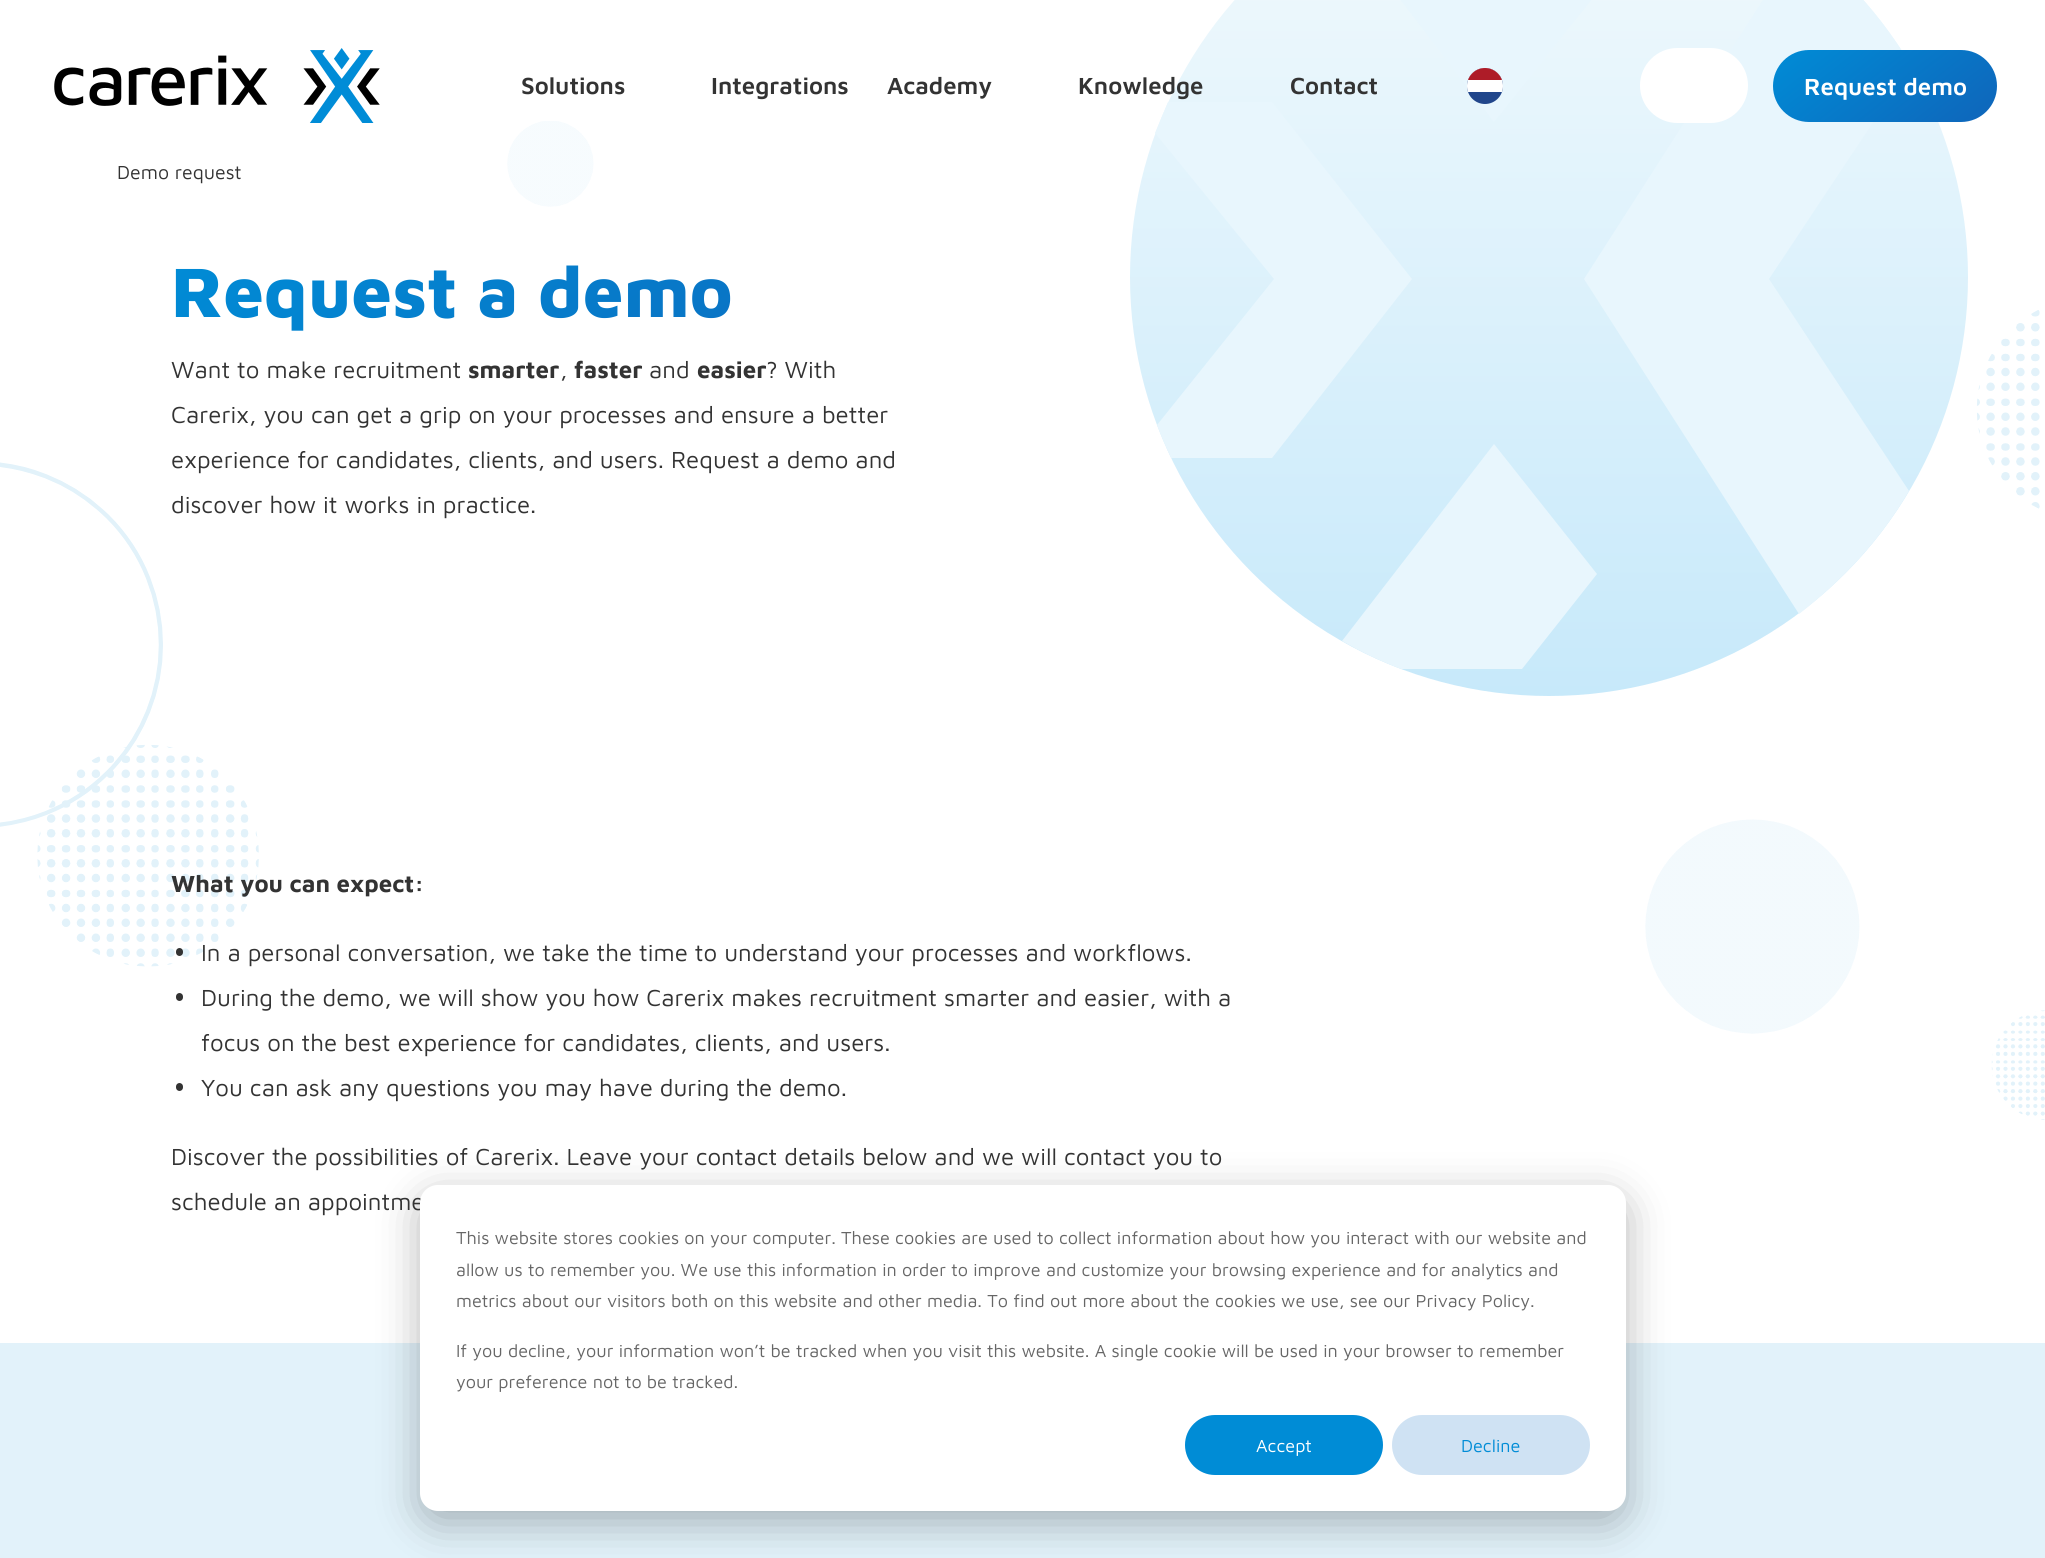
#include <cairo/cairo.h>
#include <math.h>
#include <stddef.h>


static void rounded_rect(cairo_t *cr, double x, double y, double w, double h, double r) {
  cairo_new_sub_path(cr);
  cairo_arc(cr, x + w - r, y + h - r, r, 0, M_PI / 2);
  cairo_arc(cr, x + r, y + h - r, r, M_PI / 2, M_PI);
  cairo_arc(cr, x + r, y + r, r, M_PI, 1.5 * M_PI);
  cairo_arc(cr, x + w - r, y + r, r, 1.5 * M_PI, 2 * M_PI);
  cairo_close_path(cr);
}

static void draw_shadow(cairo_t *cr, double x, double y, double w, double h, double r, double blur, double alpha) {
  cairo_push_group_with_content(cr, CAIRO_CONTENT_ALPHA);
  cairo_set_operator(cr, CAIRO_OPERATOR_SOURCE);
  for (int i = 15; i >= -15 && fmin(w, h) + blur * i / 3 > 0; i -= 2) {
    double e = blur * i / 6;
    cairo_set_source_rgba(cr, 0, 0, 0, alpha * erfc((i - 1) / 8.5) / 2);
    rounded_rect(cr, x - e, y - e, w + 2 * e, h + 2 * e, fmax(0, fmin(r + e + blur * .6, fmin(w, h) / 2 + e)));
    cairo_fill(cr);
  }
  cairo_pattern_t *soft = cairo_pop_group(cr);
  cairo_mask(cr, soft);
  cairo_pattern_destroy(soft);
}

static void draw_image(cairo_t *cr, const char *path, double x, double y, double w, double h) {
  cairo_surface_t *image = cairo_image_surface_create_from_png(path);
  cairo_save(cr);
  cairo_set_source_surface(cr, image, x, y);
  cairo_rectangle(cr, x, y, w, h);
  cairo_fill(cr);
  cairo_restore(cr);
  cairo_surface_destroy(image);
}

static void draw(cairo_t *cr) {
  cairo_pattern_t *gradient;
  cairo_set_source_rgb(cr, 1, 1, 1);
  cairo_paint(cr);
  draw_image(cr, "images/1.png", 0, 121, 2045, 999);
  draw_image(cr, "images/2.png", 54, 48, 326, 75);
  gradient = cairo_pattern_create_linear(1591, 696, 1591, -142);
  cairo_pattern_add_color_stop_rgba(gradient, 0, 199 / 255.0, 233 / 255.0, 250 / 255.0, 1);
  cairo_pattern_add_color_stop_rgba(gradient, 1, 243 / 255.0, 250 / 255.0, 253 / 255.0, 1);
  cairo_set_source(cr, gradient);
  cairo_pattern_destroy(gradient);
  cairo_arc(cr, 1549, 277, 419, 0, 2 * M_PI);
  cairo_fill(cr);
  cairo_set_source_rgb(cr, 232 / 255.0, 246 / 255.0, 253 / 255.0);
  cairo_new_path(cr);
  cairo_move_to(cr, 1401, 669);
  cairo_curve_to(cr, 1380, 661, 1361, 652, 1342, 641);
  cairo_line_to(cr, 1494, 444);
  cairo_line_to(cr, 1597, 574);
  cairo_line_to(cr, 1522, 669);
  cairo_close_path(cr);
  cairo_fill(cr);
  cairo_new_path(cr);
  cairo_move_to(cr, 1769, 279);
  cairo_line_to(cr, 1909, 491);
  cairo_curve_to(cr, 1881, 539, 1843, 580, 1799, 614);
  cairo_line_to(cr, 1584, 279);
  cairo_line_to(cr, 1800, -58);
  cairo_curve_to(cr, 1845, -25, 1882, 17, 1911, 65);
  cairo_close_path(cr);
  cairo_fill(cr);
  cairo_new_path(cr);
  cairo_move_to(cr, 1597, -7);
  cairo_line_to(cr, 1494, 122);
  cairo_line_to(cr, 1336, -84);
  cairo_curve_to(cr, 1348, -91, 1360, -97, 1372, -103);
  cairo_line_to(cr, 1522, -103);
  cairo_close_path(cr);
  cairo_fill(cr);
  cairo_set_source_rgb(cr, 33 / 255.0, 70 / 255.0, 139 / 255.0);
  cairo_arc(cr, 1485, 86, 18, 0, 2 * M_PI);
  cairo_fill(cr);
  cairo_save(cr);
  rounded_rect(cr, 1467, 68, 36, 36, 18);
  cairo_clip(cr);
  cairo_set_source_rgb(cr, 1, 1, 1);
  cairo_new_path(cr);
  cairo_move_to(cr, 1485, 68);
  cairo_curve_to(cr, 1495, 68, 1503, 76, 1503, 86);
  cairo_line_to(cr, 1503, 92);
  cairo_line_to(cr, 1467, 92);
  cairo_line_to(cr, 1467, 86);
  cairo_curve_to(cr, 1467, 76, 1475, 68, 1485, 68);
  cairo_close_path(cr);
  cairo_fill(cr);
  cairo_set_source_rgb(cr, 174 / 255.0, 28 / 255.0, 40 / 255.0);
  cairo_rectangle(cr, 1468, 68, 34, 12);
  cairo_fill(cr);
  cairo_restore(cr);
  cairo_set_source_rgb(cr, 1, 1, 1);
  rounded_rect(cr, 1640, 48, 108, 75, 37.5);
  cairo_fill(cr);
  gradient = cairo_pattern_create_linear(1825, 9, 1945, 162);
  cairo_pattern_add_color_stop_rgba(gradient, 0, 0, 140 / 255.0, 214 / 255.0, 1);
  cairo_pattern_add_color_stop_rgba(gradient, 1, 15 / 255.0, 101 / 255.0, 186 / 255.0, 1);
  cairo_set_source(cr, gradient);
  cairo_pattern_destroy(gradient);
  rounded_rect(cr, 1773, 50, 224, 72, 36);
  cairo_fill(cr);
  cairo_set_source_rgb(cr, 232 / 255.0, 246 / 255.0, 253 / 255.0);
  cairo_new_path(cr);
  cairo_move_to(cr, 1272, 102);
  cairo_line_to(cr, 1412, 279);
  cairo_line_to(cr, 1272, 458);
  cairo_line_to(cr, 1171, 458);
  cairo_curve_to(cr, 1166, 447, 1161, 436, 1157, 425);
  cairo_line_to(cr, 1274, 279);
  cairo_line_to(cr, 1155, 133);
  cairo_line_to(cr, 1168, 102);
  cairo_close_path(cr);
  cairo_fill(cr);
  cairo_set_source_rgb(cr, 51 / 255.0, 51 / 255.0, 51 / 255.0);
  rounded_rect(cr, 176, 948, 7, 8, 3.5);
  cairo_fill(cr);
  rounded_rect(cr, 176, 993, 7, 8, 3.5);
  cairo_fill(cr);
  rounded_rect(cr, 176, 1083, 7, 8, 3.5);
  cairo_fill(cr);
  cairo_set_source_rgb(cr, 226 / 255.0, 242 / 255.0, 250 / 255.0);
  cairo_rectangle(cr, 0, 1343, 2045, 215);
  cairo_fill(cr);
  cairo_set_source_rgb(cr, 0, 0, 0);
  draw_shadow(cr, 420, 1197, 1206, 326, 18, 21, 0.28);
  cairo_select_font_face(cr, "Maven Pro SemiBold", CAIRO_FONT_SLANT_NORMAL, CAIRO_FONT_WEIGHT_NORMAL);
  cairo_set_font_size(cr, 24);
  cairo_set_source_rgb(cr, 51 / 255.0, 51 / 255.0, 51 / 255.0);
  cairo_move_to(cr, 521, 94);
  cairo_show_text(cr, "Solutions");
  cairo_move_to(cr, 711, 94);
  cairo_show_text(cr, "Integrations");
  cairo_move_to(cr, 887, 94);
  cairo_show_text(cr, "Academy");
  cairo_move_to(cr, 1078, 94);
  cairo_show_text(cr, "Knowledge");
  cairo_move_to(cr, 1290, 94);
  cairo_show_text(cr, "Contact");
  cairo_set_source_rgb(cr, 1, 1, 1);
  cairo_move_to(cr, 1804, 95);
  cairo_show_text(cr, "Request demo");
  cairo_select_font_face(cr, "Maven Pro", CAIRO_FONT_SLANT_NORMAL, CAIRO_FONT_WEIGHT_NORMAL);
  cairo_set_font_size(cr, 19.5);
  cairo_set_source_rgb(cr, 51 / 255.0, 51 / 255.0, 51 / 255.0);
  cairo_move_to(cr, 117, 179);
  cairo_show_text(cr, "Demo request");
  cairo_select_font_face(cr, "Maven Pro ExtraBold", CAIRO_FONT_SLANT_NORMAL, CAIRO_FONT_WEIGHT_NORMAL);
  cairo_set_font_size(cr, 72);
  gradient = cairo_pattern_create_linear(453, 28, 864, 554);
  cairo_pattern_add_color_stop_rgba(gradient, 0, 0, 140 / 255.0, 214 / 255.0, 1);
  cairo_pattern_add_color_stop_rgba(gradient, 1, 15 / 255.0, 101 / 255.0, 186 / 255.0, 1);
  cairo_set_source(cr, gradient);
  cairo_pattern_destroy(gradient);
  cairo_move_to(cr, 171, 317);
  cairo_show_text(cr, "Request a demo");
  cairo_select_font_face(cr, "Maven Pro", CAIRO_FONT_SLANT_NORMAL, CAIRO_FONT_WEIGHT_NORMAL);
  cairo_set_font_size(cr, 24);
  cairo_set_source_rgb(cr, 51 / 255.0, 51 / 255.0, 51 / 255.0);
  cairo_move_to(cr, 171, 378);
  cairo_show_text(cr, "Want to make recruitment");
  cairo_select_font_face(cr, "Maven Pro", CAIRO_FONT_SLANT_NORMAL, CAIRO_FONT_WEIGHT_BOLD);
  cairo_move_to(cr, 468, 378);
  cairo_show_text(cr, "smarter");
  cairo_select_font_face(cr, "Maven Pro", CAIRO_FONT_SLANT_NORMAL, CAIRO_FONT_WEIGHT_NORMAL);
  cairo_move_to(cr, 560, 378);
  cairo_show_text(cr, ",");
  cairo_select_font_face(cr, "Maven Pro", CAIRO_FONT_SLANT_NORMAL, CAIRO_FONT_WEIGHT_BOLD);
  cairo_move_to(cr, 574, 378);
  cairo_show_text(cr, "faster");
  cairo_select_font_face(cr, "Maven Pro", CAIRO_FONT_SLANT_NORMAL, CAIRO_FONT_WEIGHT_NORMAL);
  cairo_move_to(cr, 649, 378);
  cairo_show_text(cr, "and");
  cairo_select_font_face(cr, "Maven Pro", CAIRO_FONT_SLANT_NORMAL, CAIRO_FONT_WEIGHT_BOLD);
  cairo_move_to(cr, 697, 378);
  cairo_show_text(cr, "easier");
  cairo_select_font_face(cr, "Maven Pro", CAIRO_FONT_SLANT_NORMAL, CAIRO_FONT_WEIGHT_NORMAL);
  cairo_move_to(cr, 766, 378);
  cairo_show_text(cr, "? With");
  cairo_move_to(cr, 171, 423);
  cairo_show_text(cr, "Carerix, you can get a grip on your processes and ensure a better");
  cairo_move_to(cr, 171, 468);
  cairo_show_text(cr, "experience for candidates, clients, and users. Request a demo and");
  cairo_move_to(cr, 171, 513);
  cairo_show_text(cr, "discover how it works in practice.");
  cairo_select_font_face(cr, "Maven Pro", CAIRO_FONT_SLANT_NORMAL, CAIRO_FONT_WEIGHT_BOLD);
  cairo_move_to(cr, 171, 892);
  cairo_show_text(cr, "What you can expect:");
  cairo_select_font_face(cr, "Maven Pro", CAIRO_FONT_SLANT_NORMAL, CAIRO_FONT_WEIGHT_NORMAL);
  cairo_move_to(cr, 201, 961);
  cairo_show_text(cr, "In a personal conversation, we take the time to understand your processes and workflows.");
  cairo_move_to(cr, 201, 1006);
  cairo_show_text(cr, "During the demo, we will show you how Carerix makes recruitment smarter and easier, with a");
  cairo_move_to(cr, 201, 1051);
  cairo_show_text(cr, "focus on the best experience for candidates, clients, and users.");
  cairo_move_to(cr, 201, 1096);
  cairo_show_text(cr, "You can ask any questions you may have during the demo.");
  cairo_move_to(cr, 171, 1165);
  cairo_show_text(cr, "Discover the possibilities of Carerix. Leave your contact details below and we will contact you to");
  cairo_move_to(cr, 171, 1210);
  cairo_show_text(cr, "schedule an appointme");
  cairo_set_source_rgb(cr, 1, 1, 1);
  rounded_rect(cr, 420, 1185, 1206, 326, 18);
  cairo_fill(cr);
  cairo_set_font_size(cr, 18);
  cairo_set_source_rgb(cr, 102 / 255.0, 102 / 255.0, 102 / 255.0);
  cairo_move_to(cr, 456, 1244);
  cairo_show_text(cr, "This website stores cookies on your computer. These cookies are used to collect information about how you interact with our website and");
  cairo_move_to(cr, 456, 1276);
  cairo_show_text(cr, "allow us to remember you. We use this information in order to improve and customize your browsing experience and for analytics and");
  cairo_move_to(cr, 456, 1307);
  cairo_show_text(cr, "metrics about our visitors both on this website and other media. To find out more about the cookies we use, see our Privacy Policy.");
  cairo_move_to(cr, 456, 1357);
  cairo_show_text(cr, "If you decline, your information won’t be tracked when you visit this website. A single cookie will be used in your browser to remember");
  cairo_move_to(cr, 456, 1388);
  cairo_show_text(cr, "your preference not to be tracked.");
  cairo_set_source_rgb(cr, 0, 140 / 255.0, 214 / 255.0);
  rounded_rect(cr, 1186, 1416, 196, 58, 29);
  cairo_fill_preserve(cr);
  cairo_stroke(cr);
  cairo_set_source_rgb(cr, 1, 1, 1);
  cairo_move_to(cr, 1256, 1452);
  cairo_show_text(cr, "Accept");
  cairo_set_source_rgb(cr, 207 / 255.0, 226 / 255.0, 243 / 255.0);
  rounded_rect(cr, 1393, 1416, 196, 58, 29);
  cairo_fill_preserve(cr);
  cairo_stroke(cr);
  cairo_set_source_rgb(cr, 0, 140 / 255.0, 214 / 255.0);
  cairo_move_to(cr, 1461, 1452);
  cairo_show_text(cr, "Decline");
}

int main(void) {
  cairo_surface_t *surface = cairo_image_surface_create(CAIRO_FORMAT_RGB24, 2045, 1558);
  cairo_t *cr = cairo_create(surface);
  cairo_font_options_t *options = cairo_font_options_create();
  cairo_font_options_set_hint_metrics(options, CAIRO_HINT_METRICS_OFF);
  cairo_font_options_set_hint_style(options, CAIRO_HINT_STYLE_NONE);
  cairo_set_font_options(cr, options);
  cairo_set_miter_limit(cr, 4);
  draw(cr);
  cairo_surface_write_to_png(surface, "out.png");
  cairo_font_options_destroy(options);
  cairo_destroy(cr);
  cairo_surface_destroy(surface);
  return 0;
}
